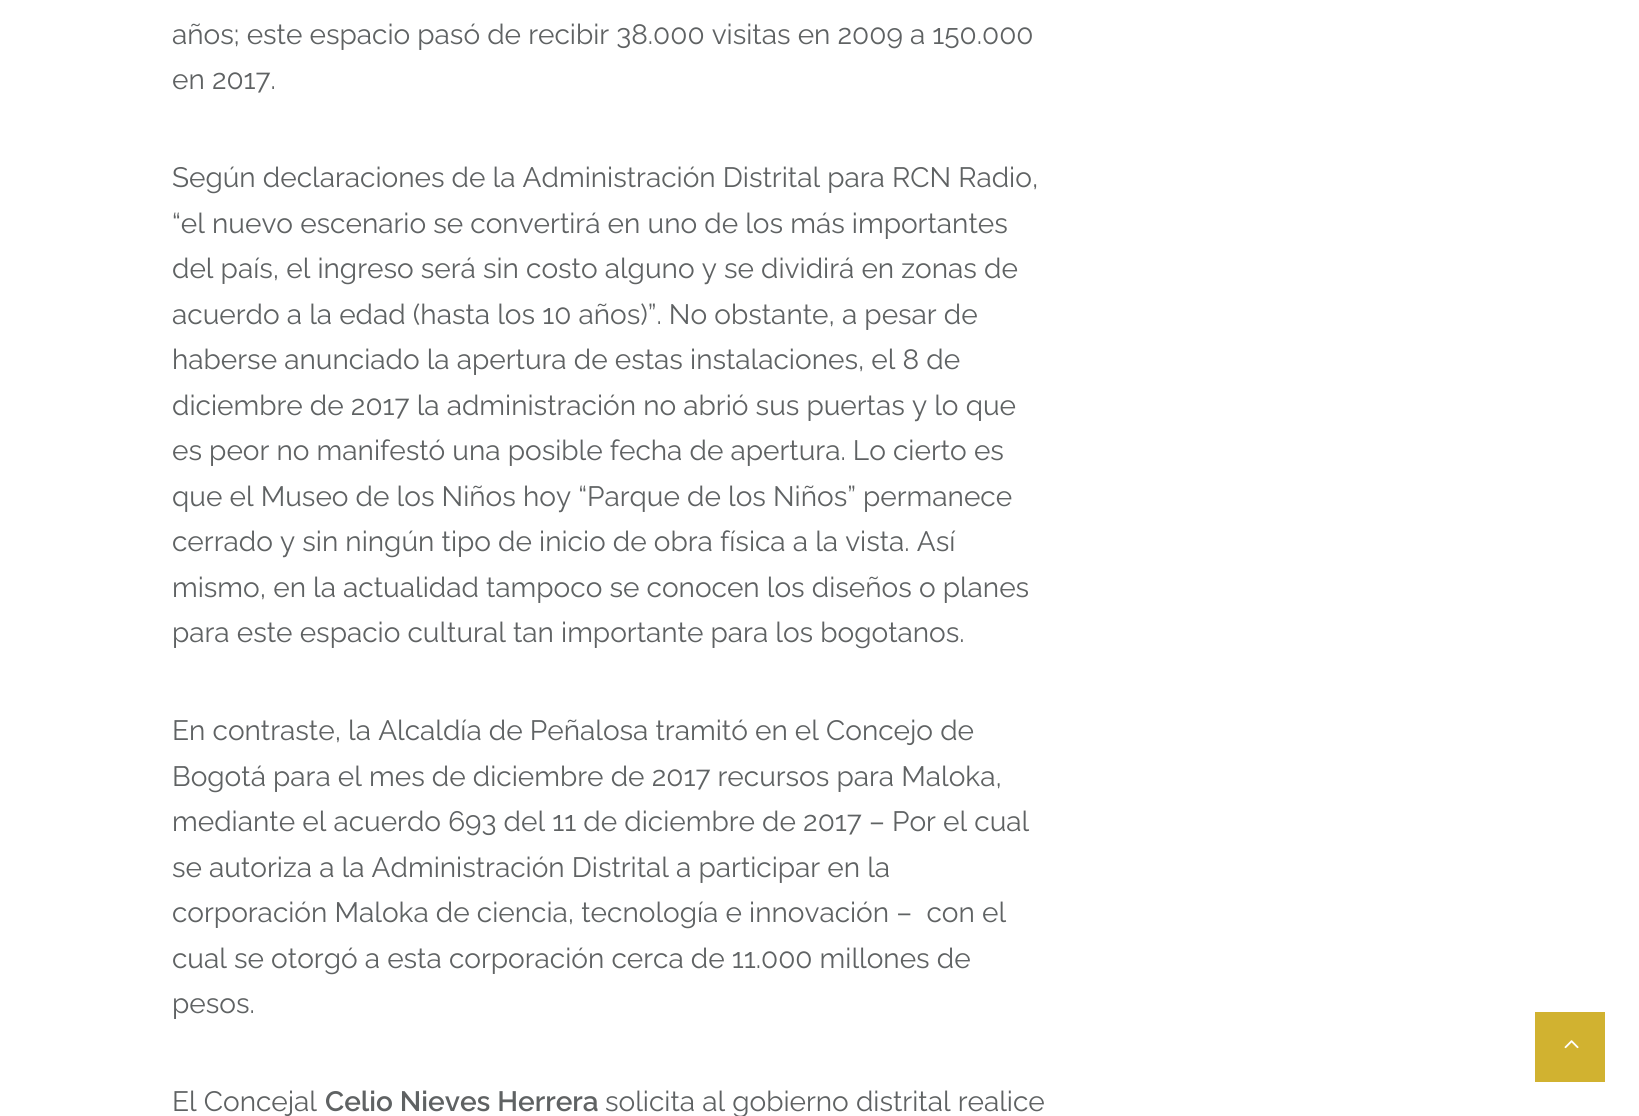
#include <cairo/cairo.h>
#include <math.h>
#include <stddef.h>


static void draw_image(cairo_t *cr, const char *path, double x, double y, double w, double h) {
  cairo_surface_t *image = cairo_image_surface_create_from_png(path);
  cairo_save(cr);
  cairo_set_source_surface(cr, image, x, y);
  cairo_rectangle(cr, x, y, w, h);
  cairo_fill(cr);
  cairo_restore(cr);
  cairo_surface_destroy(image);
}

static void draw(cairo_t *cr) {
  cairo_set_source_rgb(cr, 1, 1, 1);
  cairo_paint(cr);
  cairo_set_source_rgb(cr, 209 / 255.0, 178 / 255.0, 48 / 255.0);
  cairo_rectangle(cr, 1535, 1012, 70, 70);
  cairo_fill(cr);
  draw_image(cr, "images/1.png", 1564, 1040, 15, 9);
  cairo_select_font_face(cr, "Raleway", CAIRO_FONT_SLANT_NORMAL, CAIRO_FONT_WEIGHT_NORMAL);
  cairo_set_font_size(cr, 28);
  cairo_set_source_rgb(cr, 95 / 255.0, 98 / 255.0, 99 / 255.0);
  cairo_move_to(cr, 172, 44);
  cairo_show_text(cr, "años; este espacio pasó de recibir 38.000 visitas en 2009 a 150.000");
  cairo_move_to(cr, 172, 89);
  cairo_show_text(cr, "en 2017.");
  cairo_move_to(cr, 172, 187);
  cairo_show_text(cr, "Según declaraciones de la Administración Distrital para RCN Radio,");
  cairo_move_to(cr, 172, 233);
  cairo_show_text(cr, "“el nuevo escenario se convertirá en uno de los más importantes");
  cairo_move_to(cr, 172, 278);
  cairo_show_text(cr, "del país, el ingreso será sin costo alguno y se dividirá en zonas de");
  cairo_move_to(cr, 172, 324);
  cairo_show_text(cr, "acuerdo a la edad (hasta los 10 años)”. No obstante, a pesar de");
  cairo_move_to(cr, 172, 369);
  cairo_show_text(cr, "haberse anunciado la apertura de estas instalaciones, el 8 de");
  cairo_move_to(cr, 172, 415);
  cairo_show_text(cr, "diciembre de 2017 la administración no abrió sus puertas y lo que");
  cairo_move_to(cr, 172, 460);
  cairo_show_text(cr, "es peor no manifestó una posible fecha de apertura. Lo cierto es");
  cairo_move_to(cr, 172, 506);
  cairo_show_text(cr, "que el Museo de los Niños hoy “Parque de los Niños” permanece");
  cairo_move_to(cr, 172, 551);
  cairo_show_text(cr, "cerrado y sin ningún tipo de inicio de obra física a la vista. Así");
  cairo_move_to(cr, 172, 597);
  cairo_show_text(cr, "mismo, en la actualidad tampoco se conocen los diseños o planes");
  cairo_move_to(cr, 172, 642);
  cairo_show_text(cr, "para este espacio cultural tan importante para los bogotanos.");
  cairo_move_to(cr, 172, 740);
  cairo_show_text(cr, "En contraste, la Alcaldía de Peñalosa tramitó en el Concejo de");
  cairo_move_to(cr, 172, 786);
  cairo_show_text(cr, "Bogotá para el mes de diciembre de 2017 recursos para Maloka,");
  cairo_move_to(cr, 172, 831);
  cairo_show_text(cr, "mediante el acuerdo 693 del 11 de diciembre de 2017 – Por el cual");
  cairo_move_to(cr, 172, 877);
  cairo_show_text(cr, "se autoriza a la Administración Distrital a participar en la");
  cairo_move_to(cr, 172, 922);
  cairo_show_text(cr, "corporación Maloka de ciencia, tecnología e innovación –  con el");
  cairo_move_to(cr, 172, 968);
  cairo_show_text(cr, "cual se otorgó a esta corporación cerca de 11.000 millones de");
  cairo_move_to(cr, 172, 1013);
  cairo_show_text(cr, "pesos.");
  cairo_move_to(cr, 172, 1111);
  cairo_show_text(cr, "El Concejal");
  cairo_select_font_face(cr, "Raleway SemiBold", CAIRO_FONT_SLANT_NORMAL, CAIRO_FONT_WEIGHT_NORMAL);
  cairo_move_to(cr, 325, 1111);
  cairo_show_text(cr, "Celio Nieves Herrera");
  cairo_select_font_face(cr, "Raleway", CAIRO_FONT_SLANT_NORMAL, CAIRO_FONT_WEIGHT_NORMAL);
  cairo_move_to(cr, 605, 1111);
  cairo_show_text(cr, "solicita al gobierno distrital realice");
}

int main(void) {
  cairo_surface_t *surface = cairo_image_surface_create(CAIRO_FORMAT_RGB24, 1639, 1116);
  cairo_t *cr = cairo_create(surface);
  cairo_font_options_t *options = cairo_font_options_create();
  cairo_font_options_set_hint_metrics(options, CAIRO_HINT_METRICS_OFF);
  cairo_font_options_set_hint_style(options, CAIRO_HINT_STYLE_NONE);
  cairo_set_font_options(cr, options);
  cairo_set_miter_limit(cr, 4);
  draw(cr);
  cairo_surface_write_to_png(surface, "out.png");
  cairo_font_options_destroy(options);
  cairo_destroy(cr);
  cairo_surface_destroy(surface);
  return 0;
}
